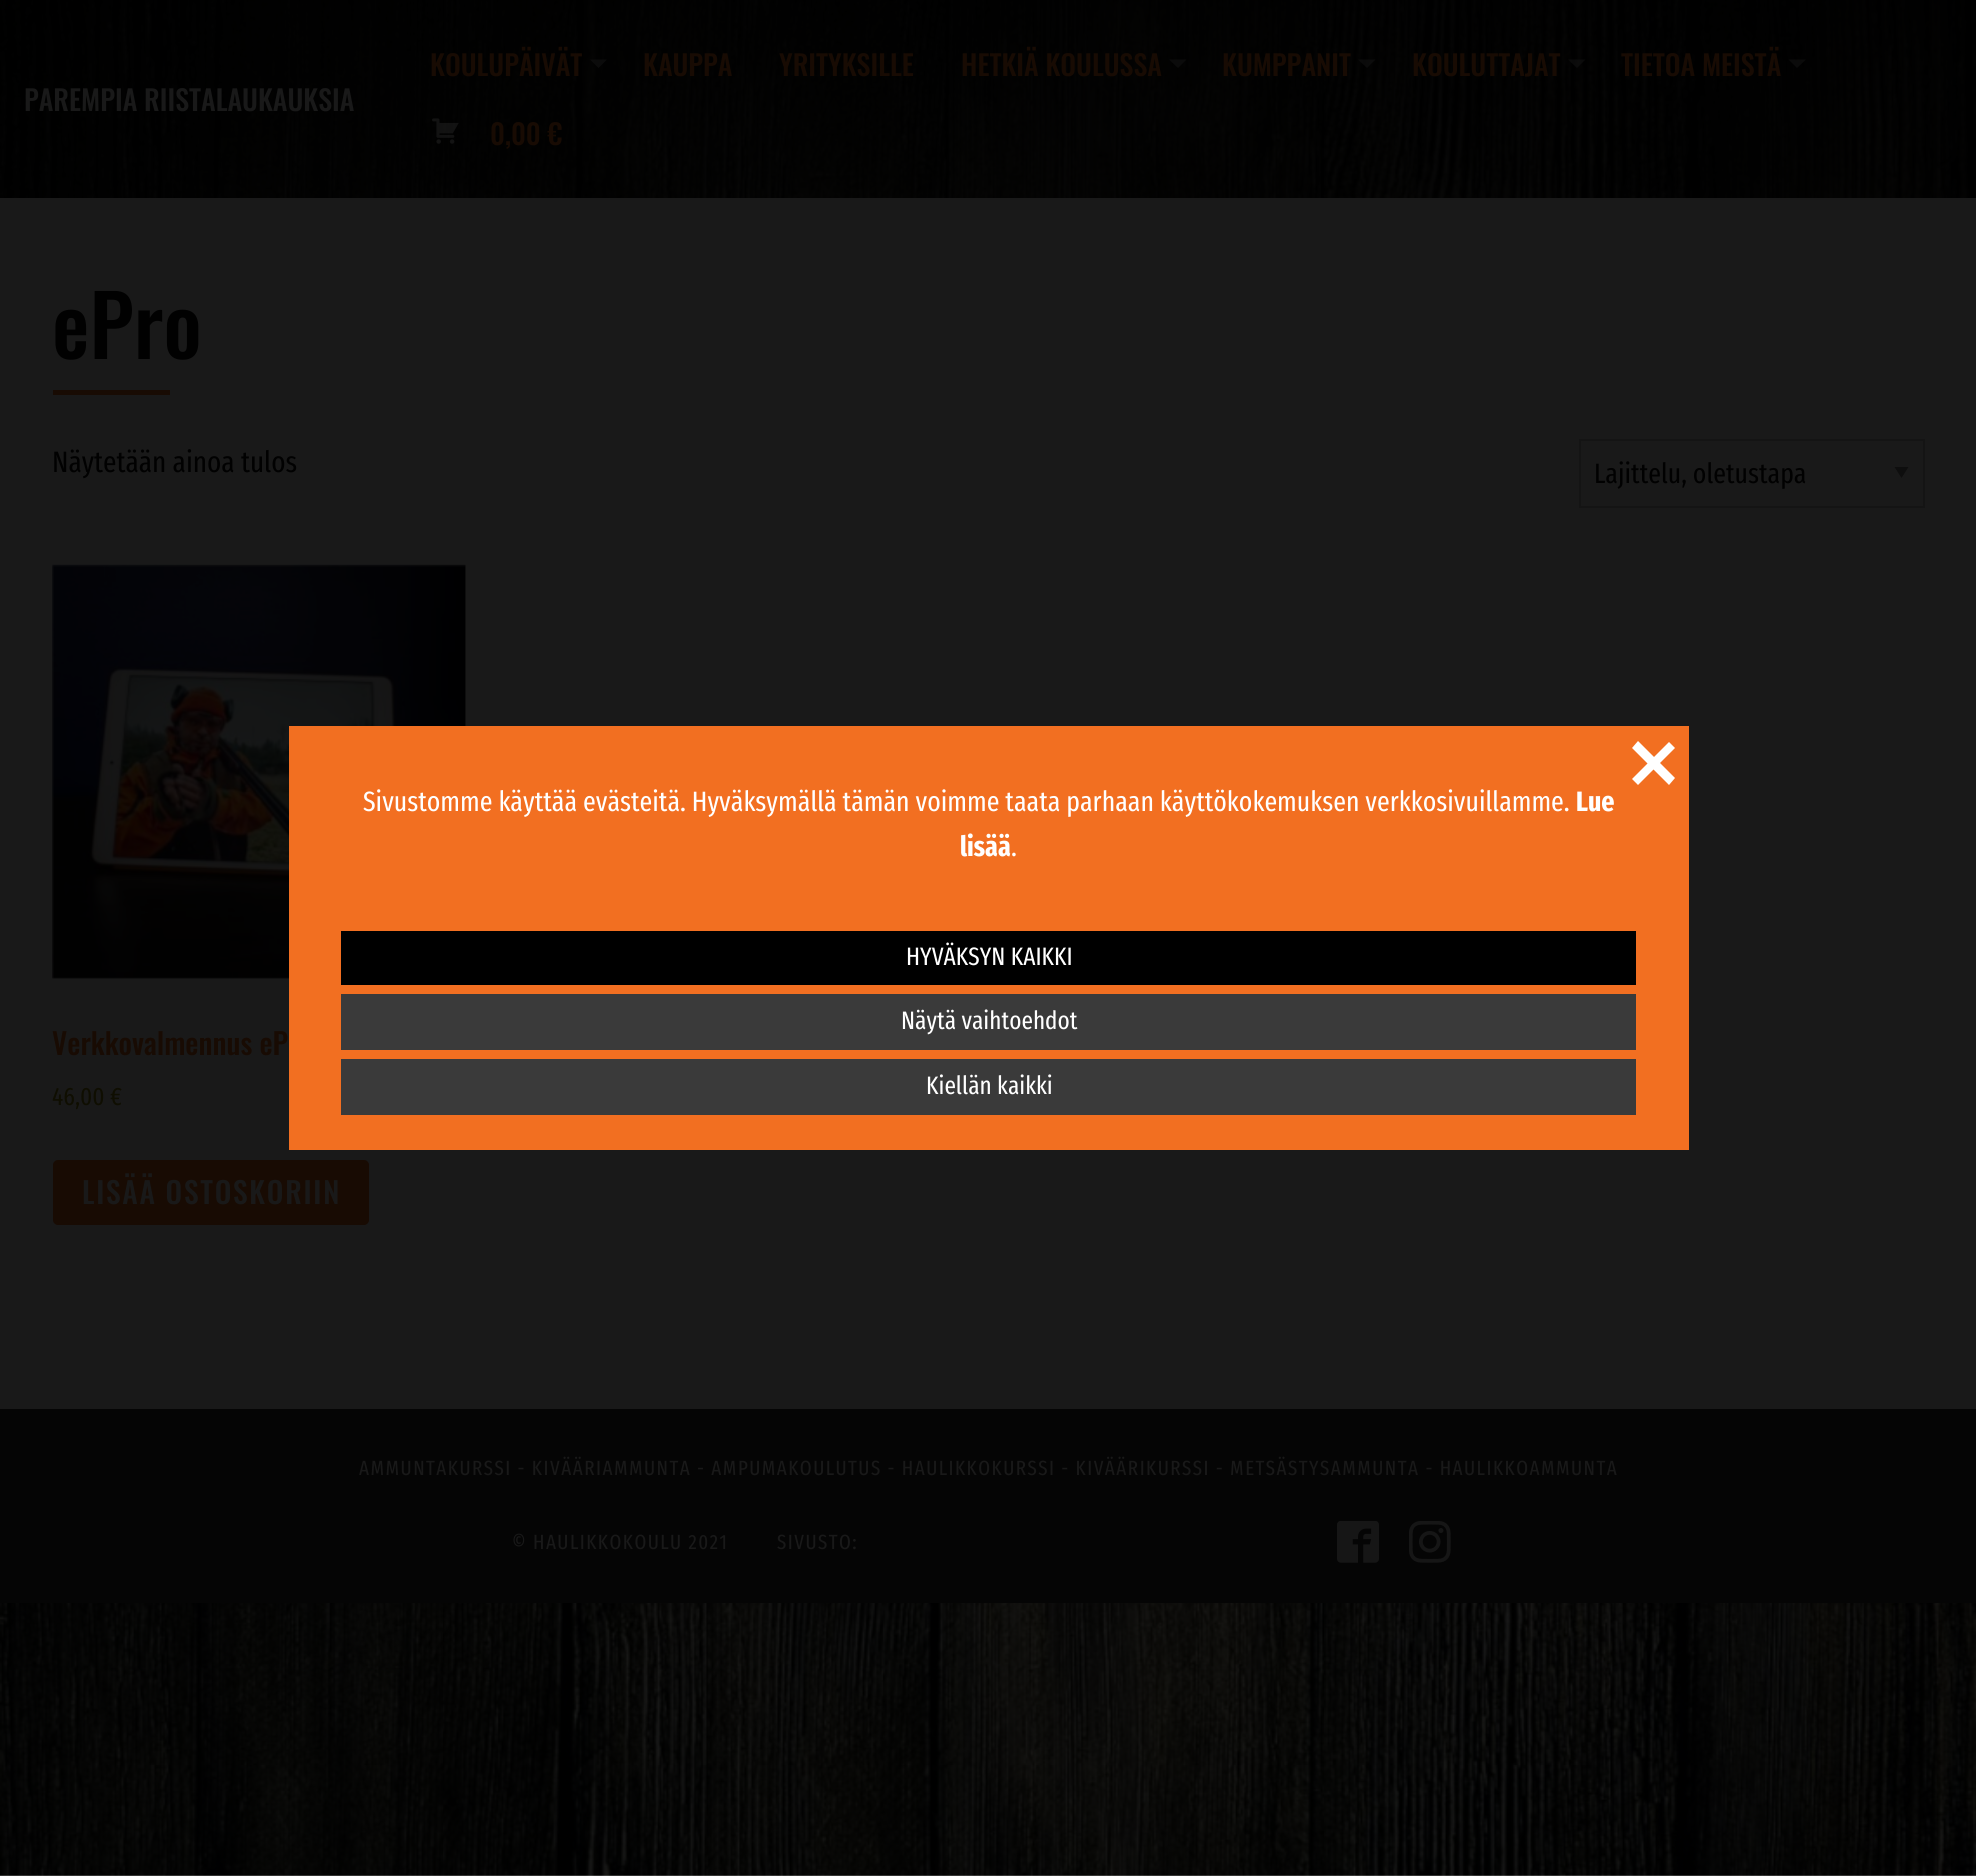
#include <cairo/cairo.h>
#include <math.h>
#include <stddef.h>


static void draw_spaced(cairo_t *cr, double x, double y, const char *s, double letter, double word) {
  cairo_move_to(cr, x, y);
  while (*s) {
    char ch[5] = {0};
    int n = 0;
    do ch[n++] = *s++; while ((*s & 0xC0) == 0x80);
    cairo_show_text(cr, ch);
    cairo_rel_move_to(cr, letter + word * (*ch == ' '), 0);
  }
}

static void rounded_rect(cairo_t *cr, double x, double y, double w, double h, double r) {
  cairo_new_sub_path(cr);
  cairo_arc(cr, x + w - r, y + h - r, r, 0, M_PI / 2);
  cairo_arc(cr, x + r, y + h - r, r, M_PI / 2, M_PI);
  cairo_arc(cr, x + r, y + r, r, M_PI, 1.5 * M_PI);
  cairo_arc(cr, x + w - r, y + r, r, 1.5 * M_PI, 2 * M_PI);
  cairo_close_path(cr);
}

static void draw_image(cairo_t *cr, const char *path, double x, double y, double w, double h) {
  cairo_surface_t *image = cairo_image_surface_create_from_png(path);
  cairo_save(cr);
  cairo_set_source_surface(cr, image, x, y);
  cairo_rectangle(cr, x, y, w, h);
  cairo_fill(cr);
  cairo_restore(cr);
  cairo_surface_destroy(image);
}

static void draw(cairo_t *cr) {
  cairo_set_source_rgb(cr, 1, 1, 1);
  cairo_paint(cr);
  draw_image(cr, "images/1.png", 0, 0, 1976, 1876);
  cairo_set_source_rgba(cr, 25 / 255.0, 25 / 255.0, 25 / 255.0, 0.4);
  cairo_new_path(cr);
  cairo_move_to(cr, 590, 59.5);
  cairo_line_to(cr, 607, 59.5);
  cairo_line_to(cr, 598.5, 68);
  cairo_close_path(cr);
  cairo_fill(cr);
  cairo_new_path(cr);
  cairo_move_to(cr, 1169, 59.5);
  cairo_line_to(cr, 1186.5, 59.5);
  cairo_line_to(cr, 1178, 68);
  cairo_close_path(cr);
  cairo_fill(cr);
  cairo_new_path(cr);
  cairo_move_to(cr, 1358, 59.5);
  cairo_line_to(cr, 1375.5, 59.5);
  cairo_line_to(cr, 1367, 68);
  cairo_close_path(cr);
  cairo_fill(cr);
  cairo_new_path(cr);
  cairo_move_to(cr, 1568, 59.5);
  cairo_line_to(cr, 1585.5, 59.5);
  cairo_line_to(cr, 1577, 68);
  cairo_close_path(cr);
  cairo_fill(cr);
  cairo_new_path(cr);
  cairo_move_to(cr, 1788.5, 59.5);
  cairo_line_to(cr, 1806, 59.5);
  cairo_line_to(cr, 1797, 68);
  cairo_close_path(cr);
  cairo_fill(cr);
  draw_image(cr, "images/2.png", 432, 118, 27, 26);
  cairo_set_source_rgb(cr, 25 / 255.0, 25 / 255.0, 25 / 255.0);
  cairo_rectangle(cr, 0, 198, 1976, 1211);
  cairo_fill(cr);
  cairo_set_source_rgb(cr, 24 / 255.0, 11 / 255.0, 3 / 255.0);
  cairo_rectangle(cr, 53, 390, 117, 5);
  cairo_fill(cr);
  cairo_set_source_rgb(cr, 14 / 255.0, 14 / 255.0, 14 / 255.0);
  cairo_new_path(cr);
  cairo_move_to(cr, 1894.5, 467);
  cairo_line_to(cr, 1908.5, 467);
  cairo_line_to(cr, 1901.5, 478);
  cairo_close_path(cr);
  cairo_fill(cr);
  cairo_rectangle(cr, 1580, 440, 344, 67);
  cairo_set_source_rgb(cr, 20 / 255.0, 20 / 255.0, 20 / 255.0);
  cairo_stroke(cr);
  draw_image(cr, "images/3.png", 52, 564, 414, 415);
  cairo_set_source_rgb(cr, 24 / 255.0, 11 / 255.0, 3 / 255.0);
  rounded_rect(cr, 53, 1160, 316, 65, 5);
  cairo_fill(cr);
  cairo_set_source_rgb(cr, 5 / 255.0, 5 / 255.0, 5 / 255.0);
  cairo_rectangle(cr, 0, 1409, 1976, 194);
  cairo_fill(cr);
  draw_image(cr, "images/4.png", 1337, 1521, 42, 42);
  draw_image(cr, "images/5.png", 1409, 1521, 42, 42);
  cairo_set_source_rgb(cr, 242 / 255.0, 111 / 255.0, 33 / 255.0);
  cairo_rectangle(cr, 289, 726, 1400, 424);
  cairo_fill(cr);
  cairo_set_source_rgb(cr, 1, 1, 1);
  cairo_new_path(cr);
  cairo_move_to(cr, 1632, 779);
  cairo_line_to(cr, 1669, 742);
  cairo_line_to(cr, 1675, 748);
  cairo_line_to(cr, 1638, 785);
  cairo_close_path(cr);
  cairo_fill(cr);
  cairo_new_path(cr);
  cairo_move_to(cr, 1638, 741);
  cairo_line_to(cr, 1675, 778);
  cairo_line_to(cr, 1669, 785);
  cairo_line_to(cr, 1632, 748);
  cairo_close_path(cr);
  cairo_fill(cr);
  cairo_set_source_rgb(cr, 0, 0, 0);
  cairo_rectangle(cr, 341, 931, 1295, 54);
  cairo_fill(cr);
  cairo_set_source_rgb(cr, 58 / 255.0, 58 / 255.0, 58 / 255.0);
  cairo_rectangle(cr, 341, 994, 1295, 56);
  cairo_fill(cr);
  cairo_rectangle(cr, 341, 1059, 1295, 56);
  cairo_fill(cr);
  cairo_select_font_face(cr, "Oswald Medium", CAIRO_FONT_SLANT_NORMAL, CAIRO_FONT_WEIGHT_NORMAL);
  cairo_set_font_size(cr, 28);
  cairo_set_source_rgb(cr, 25 / 255.0, 25 / 255.0, 25 / 255.0);
  cairo_move_to(cr, 24, 111);
  cairo_show_text(cr, "PAREMPIA RIISTALAUKAUKSIA");
  cairo_set_source_rgb(cr, 24 / 255.0, 11 / 255.0, 3 / 255.0);
  cairo_move_to(cr, 430, 76);
  cairo_show_text(cr, "KOULUPÄIVÄT");
  cairo_move_to(cr, 643, 76);
  cairo_show_text(cr, "KAUPPA");
  cairo_move_to(cr, 779, 76);
  cairo_show_text(cr, "YRITYKSILLE");
  cairo_move_to(cr, 961, 76);
  cairo_show_text(cr, "HETKIÄ KOULUSSA");
  cairo_move_to(cr, 1222, 76);
  cairo_show_text(cr, "KUMPPANIT");
  cairo_move_to(cr, 1412, 76);
  cairo_show_text(cr, "KOULUTTAJAT");
  cairo_move_to(cr, 1621, 76);
  cairo_show_text(cr, "TIETOA MEISTÄ");
  cairo_move_to(cr, 490, 145);
  cairo_show_text(cr, "0,00 €");
  cairo_set_font_size(cr, 84);
  cairo_set_source_rgb(cr, 1 / 255.0, 1 / 255.0, 1 / 255.0);
  cairo_move_to(cr, 52, 359);
  cairo_show_text(cr, "ePro");
  cairo_select_font_face(cr, "Fira Sans Extra Condensed", CAIRO_FONT_SLANT_NORMAL, CAIRO_FONT_WEIGHT_NORMAL);
  cairo_set_font_size(cr, 29.5);
  cairo_move_to(cr, 52, 472);
  cairo_show_text(cr, "Näytetään ainoa tulos");
  cairo_set_font_size(cr, 28);
  cairo_move_to(cr, 1594, 483);
  cairo_show_text(cr, "Lajittelu, oletustapa");
  cairo_select_font_face(cr, "Oswald Medium", CAIRO_FONT_SLANT_NORMAL, CAIRO_FONT_WEIGHT_NORMAL);
  cairo_set_font_size(cr, 29.5);
  cairo_set_source_rgb(cr, 24 / 255.0, 11 / 255.0, 3 / 255.0);
  cairo_move_to(cr, 52, 1055);
  cairo_show_text(cr, "Verkkovalmennus eP");
  cairo_select_font_face(cr, "Fira Sans Extra Condensed", CAIRO_FONT_SLANT_NORMAL, CAIRO_FONT_WEIGHT_NORMAL);
  cairo_set_font_size(cr, 25.25);
  cairo_set_source_rgb(cr, 15 / 255.0, 14 / 255.0, 1 / 255.0);
  cairo_move_to(cr, 52, 1105);
  cairo_show_text(cr, "46,00 €");
  cairo_select_font_face(cr, "Oswald Medium", CAIRO_FONT_SLANT_NORMAL, CAIRO_FONT_WEIGHT_NORMAL);
  cairo_set_font_size(cr, 29.5);
  cairo_set_source_rgb(cr, 25 / 255.0, 25 / 255.0, 25 / 255.0);
  draw_spaced(cr, 82, 1204, "LISÄÄ OSTOSKORIIN", 1.75, 0);
  cairo_select_font_face(cr, "Fira Sans Extra Condensed", CAIRO_FONT_SLANT_NORMAL, CAIRO_FONT_WEIGHT_NORMAL);
  cairo_set_font_size(cr, 20.58);
  draw_spaced(cr, 359, 1475, "AMMUNTAKURSSI - KIVÄÄRIAMMUNTA - AMPUMAKOULUTUS - HAULIKKOKURSSI - KIVÄÄRIKURSSI - METSÄSTYSAMMUNTA - HAULIKKOAMMUNTA", 1.47, 0);
  draw_spaced(cr, 512, 1549, "© HAULIKKOKOULU 2021", 1.47, 0);
  draw_spaced(cr, 777, 1549, "SIVUSTO:", 1.47, 0);
  cairo_set_font_size(cr, 28);
  cairo_set_source_rgb(cr, 1, 1, 1);
  cairo_move_to(cr, 363, 811);
  cairo_show_text(cr, "Sivustomme käyttää evästeitä. Hyväksymällä tämän voimme taata parhaan käyttökokemuksen verkkosivuillamme.");
  cairo_select_font_face(cr, "Fira Sans Extra Condensed", CAIRO_FONT_SLANT_NORMAL, CAIRO_FONT_WEIGHT_BOLD);
  cairo_move_to(cr, 1576, 811);
  cairo_show_text(cr, "Lue");
  cairo_move_to(cr, 960, 856);
  cairo_show_text(cr, "lisää");
  cairo_select_font_face(cr, "Fira Sans Extra Condensed", CAIRO_FONT_SLANT_NORMAL, CAIRO_FONT_WEIGHT_NORMAL);
  cairo_move_to(cr, 1011, 856);
  cairo_show_text(cr, ".");
  cairo_set_font_size(cr, 25.25);
  cairo_move_to(cr, 906, 965);
  cairo_show_text(cr, "HYVÄKSYN KAIKKI");
  cairo_move_to(cr, 901, 1029);
  cairo_show_text(cr, "Näytä vaihtoehdot");
  cairo_move_to(cr, 926, 1094);
  cairo_show_text(cr, "Kiellän kaikki");
}

int main(void) {
  cairo_surface_t *surface = cairo_image_surface_create(CAIRO_FORMAT_RGB24, 1976, 1876);
  cairo_t *cr = cairo_create(surface);
  cairo_font_options_t *options = cairo_font_options_create();
  cairo_font_options_set_hint_metrics(options, CAIRO_HINT_METRICS_OFF);
  cairo_font_options_set_hint_style(options, CAIRO_HINT_STYLE_NONE);
  cairo_set_font_options(cr, options);
  cairo_set_miter_limit(cr, 4);
  draw(cr);
  cairo_surface_write_to_png(surface, "out.png");
  cairo_font_options_destroy(options);
  cairo_destroy(cr);
  cairo_surface_destroy(surface);
  return 0;
}
